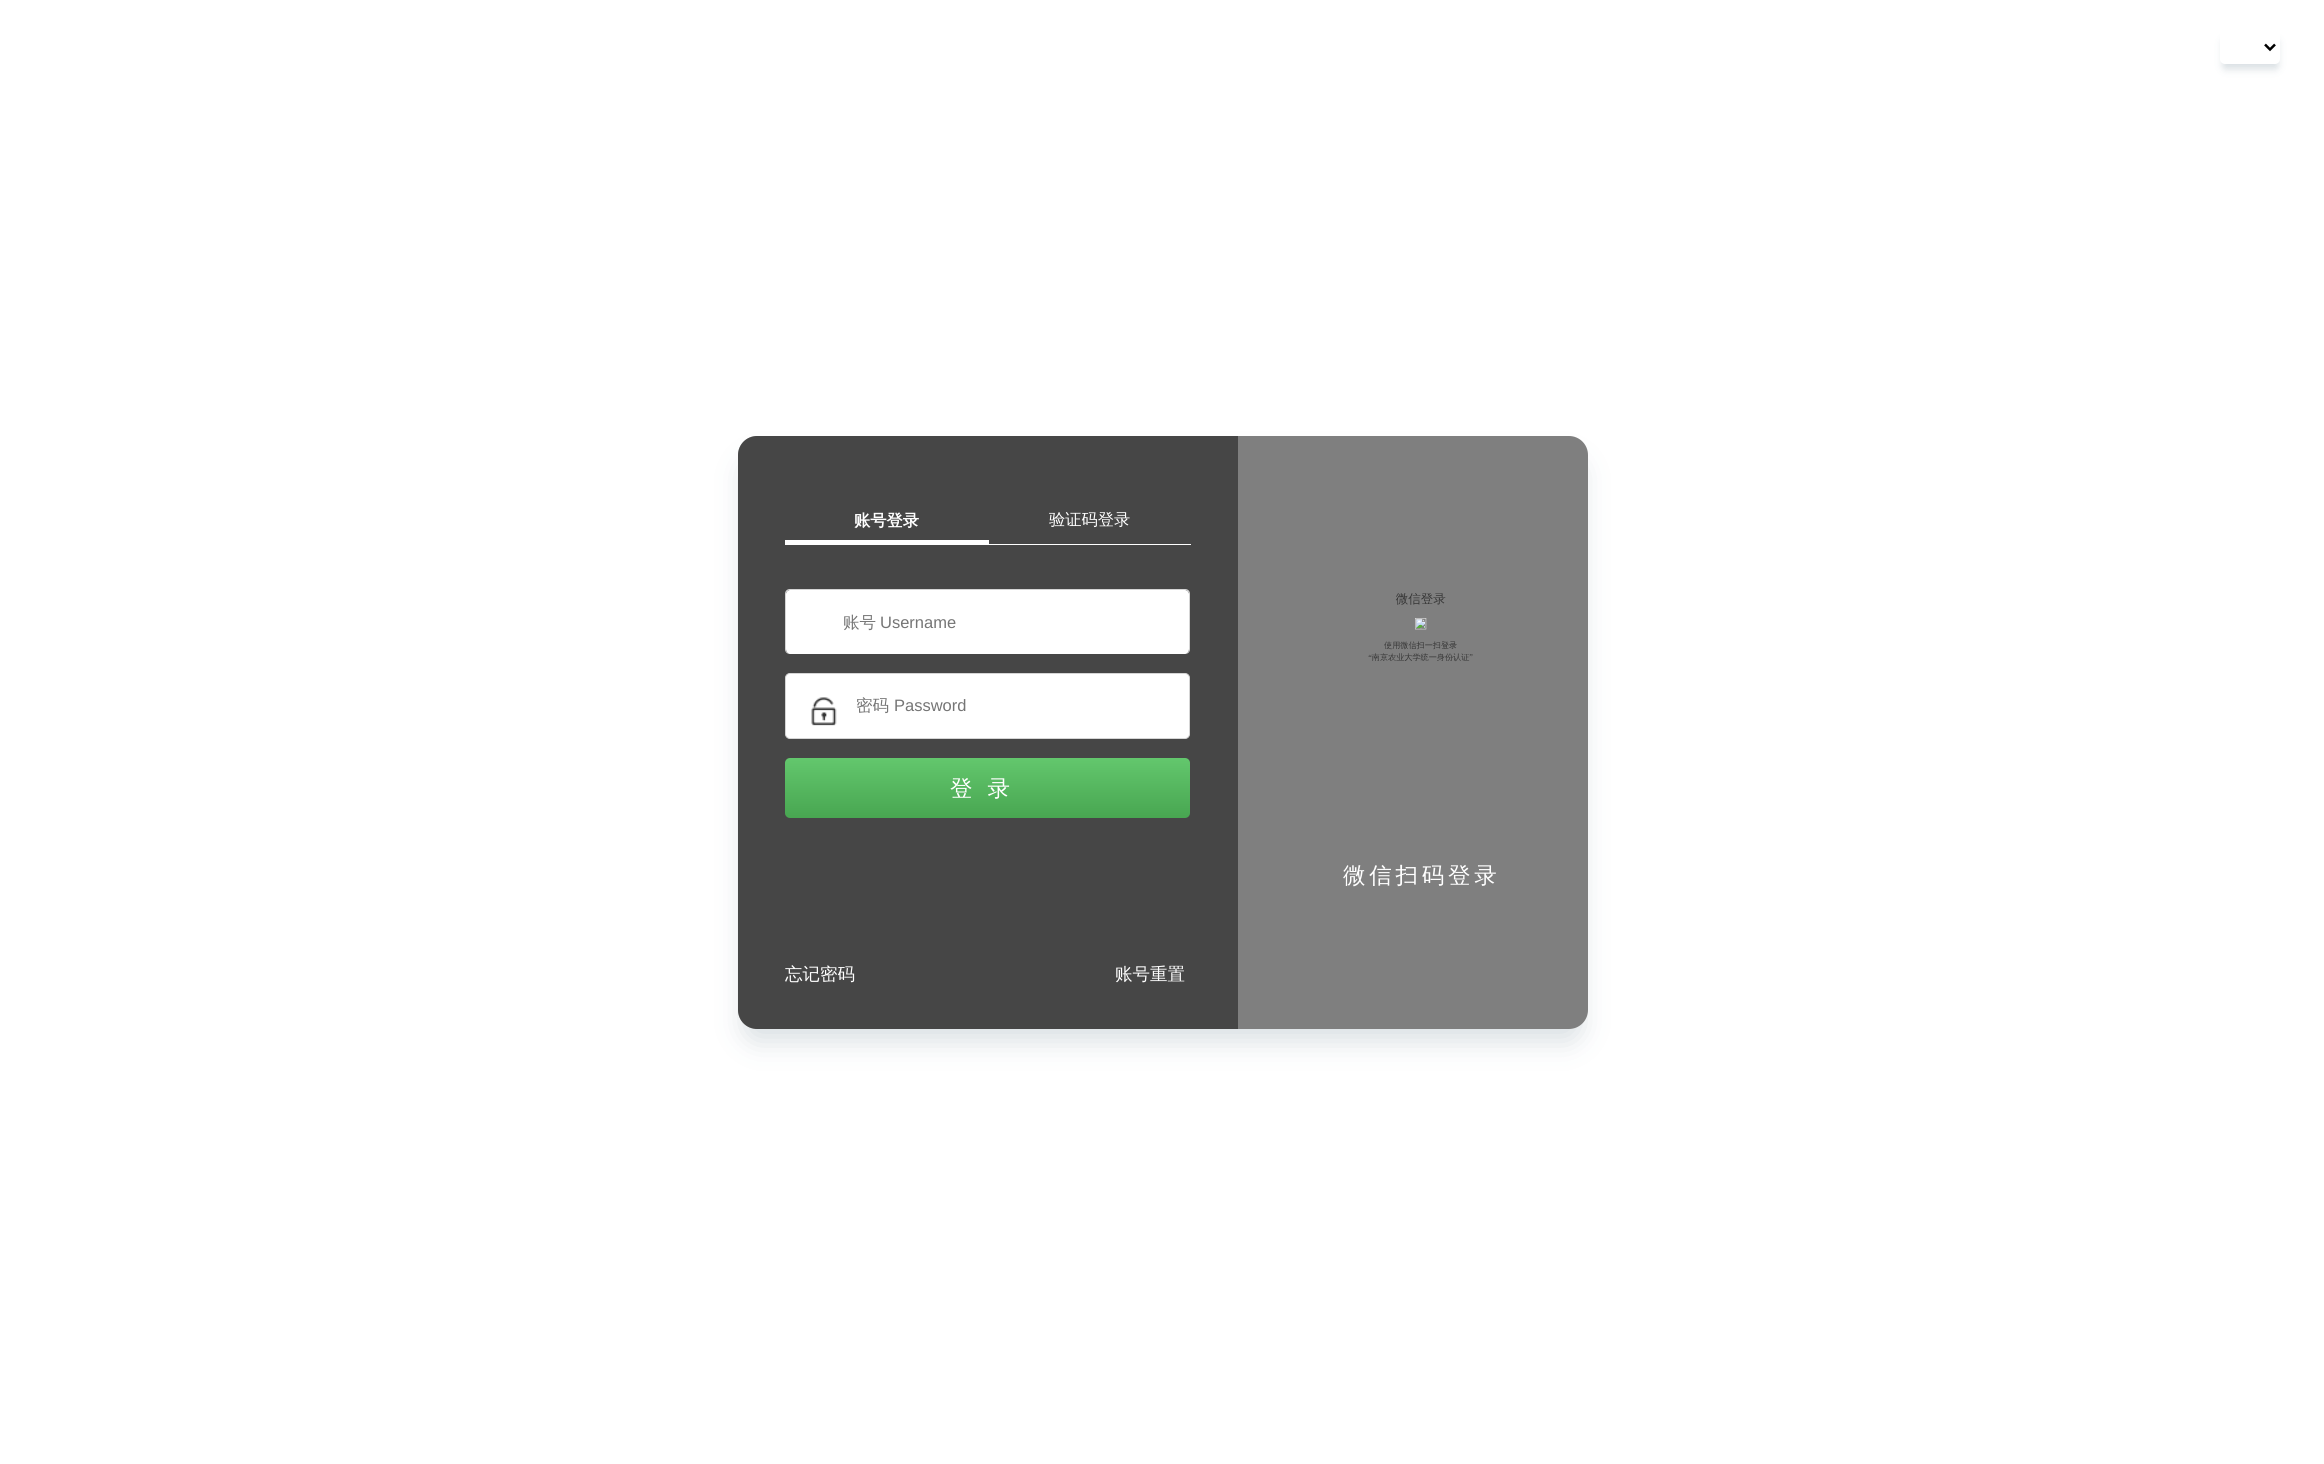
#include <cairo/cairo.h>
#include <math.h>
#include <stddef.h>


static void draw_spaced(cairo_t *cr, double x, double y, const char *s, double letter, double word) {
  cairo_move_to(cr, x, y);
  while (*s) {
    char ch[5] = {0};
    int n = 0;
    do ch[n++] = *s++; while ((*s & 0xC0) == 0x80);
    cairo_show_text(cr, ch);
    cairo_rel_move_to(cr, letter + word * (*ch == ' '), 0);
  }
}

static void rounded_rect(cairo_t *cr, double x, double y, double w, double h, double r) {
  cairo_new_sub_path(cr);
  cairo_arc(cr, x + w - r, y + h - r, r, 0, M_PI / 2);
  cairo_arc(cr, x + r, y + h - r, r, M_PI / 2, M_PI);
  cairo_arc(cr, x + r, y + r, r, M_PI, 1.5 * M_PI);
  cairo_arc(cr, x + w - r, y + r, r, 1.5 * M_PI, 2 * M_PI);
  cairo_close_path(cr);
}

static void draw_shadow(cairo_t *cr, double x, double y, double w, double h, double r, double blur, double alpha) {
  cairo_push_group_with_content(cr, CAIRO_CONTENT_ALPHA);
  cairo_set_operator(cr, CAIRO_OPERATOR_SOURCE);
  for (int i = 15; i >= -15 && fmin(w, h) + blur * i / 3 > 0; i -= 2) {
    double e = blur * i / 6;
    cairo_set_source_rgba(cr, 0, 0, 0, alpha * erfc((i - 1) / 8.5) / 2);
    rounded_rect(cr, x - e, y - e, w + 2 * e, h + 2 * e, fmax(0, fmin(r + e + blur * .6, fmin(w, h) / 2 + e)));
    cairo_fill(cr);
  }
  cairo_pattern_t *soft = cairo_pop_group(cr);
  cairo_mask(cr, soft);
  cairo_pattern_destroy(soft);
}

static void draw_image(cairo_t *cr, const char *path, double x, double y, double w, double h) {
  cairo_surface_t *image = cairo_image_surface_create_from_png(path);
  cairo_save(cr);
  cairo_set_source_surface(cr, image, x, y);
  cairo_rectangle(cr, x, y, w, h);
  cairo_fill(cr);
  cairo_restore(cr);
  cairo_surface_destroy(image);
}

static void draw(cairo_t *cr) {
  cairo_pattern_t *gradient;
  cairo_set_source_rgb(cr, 1, 1, 1);
  cairo_paint(cr);
  cairo_set_source_rgb(cr, 40 / 255.0, 75 / 255.0, 96 / 255.0);
  draw_shadow(cr, 2223, 40, 55, 29, 2.5, 4, 0.18);
  cairo_set_source_rgb(cr, 1, 1, 1);
  rounded_rect(cr, 2220, 30, 60, 34, 5);
  cairo_fill(cr);
  cairo_new_path(cr);
  cairo_move_to(cr, 2265, 44.5);
  cairo_line_to(cr, 2270, 49.5);
  cairo_line_to(cr, 2275, 44.5);
  cairo_set_source_rgb(cr, 0, 0, 0);
  cairo_set_line_width(cr, 2.5);
  cairo_stroke(cr);
  cairo_save(cr);
  cairo_set_fill_rule(cr, CAIRO_FILL_RULE_EVEN_ODD);
  cairo_new_path(cr);
  cairo_move_to(cr, 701, 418);
  cairo_line_to(cr, 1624, 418);
  cairo_line_to(cr, 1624, 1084);
  cairo_line_to(cr, 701, 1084);
  cairo_close_path(cr);
  cairo_move_to(cr, 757, 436);
  cairo_line_to(cr, 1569, 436);
  cairo_curve_to(cr, 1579.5, 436, 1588, 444.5, 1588, 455);
  cairo_line_to(cr, 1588, 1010);
  cairo_curve_to(cr, 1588, 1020.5, 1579.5, 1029, 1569, 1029);
  cairo_line_to(cr, 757, 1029);
  cairo_curve_to(cr, 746.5, 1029, 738, 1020.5, 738, 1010);
  cairo_line_to(cr, 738, 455);
  cairo_curve_to(cr, 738, 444.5, 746.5, 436, 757, 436);
  cairo_close_path(cr);
  cairo_clip(cr);
  cairo_set_source_rgb(cr, 40 / 255.0, 75 / 255.0, 96 / 255.0);
  draw_shadow(cr, 744, 461, 837, 580, 13, 14, 0.18);
  cairo_restore(cr);
  cairo_set_source_rgba(cr, 0, 0, 0, 0.5);
  rounded_rect(cr, 738, 436, 850, 593, 19);
  cairo_fill(cr);
  cairo_set_source_rgba(cr, 0, 0, 0, 0.45);
  cairo_new_path(cr);
  cairo_move_to(cr, 757, 436);
  cairo_line_to(cr, 1238, 436);
  cairo_line_to(cr, 1238, 1029);
  cairo_line_to(cr, 757, 1029);
  cairo_curve_to(cr, 746.5, 1029, 738, 1020.5, 738, 1010);
  cairo_line_to(cr, 738, 455);
  cairo_curve_to(cr, 738, 444.5, 746.5, 436, 757, 436);
  cairo_close_path(cr);
  cairo_fill(cr);
  cairo_set_source_rgb(cr, 1, 1, 1);
  cairo_rectangle(cr, 785, 544, 406, 1);
  cairo_fill(cr);
  cairo_rectangle(cr, 785, 540, 204, 4);
  cairo_fill(cr);
  cairo_new_path(cr);
  cairo_move_to(cr, 790, 590);
  cairo_line_to(cr, 1185, 590);
  cairo_curve_to(cr, 1187, 590, 1189, 592, 1189, 594);
  cairo_line_to(cr, 1189, 649);
  cairo_curve_to(cr, 1189, 652, 1187, 654, 1185, 654);
  cairo_line_to(cr, 790, 654);
  cairo_curve_to(cr, 788, 654, 786, 652, 786, 649);
  cairo_line_to(cr, 786, 594);
  cairo_curve_to(cr, 786, 592, 788, 590, 790, 590);
  cairo_close_path(cr);
  cairo_fill(cr);
  cairo_set_source_rgb(cr, 213 / 255.0, 213 / 255.0, 213 / 255.0);
  cairo_set_fill_rule(cr, CAIRO_FILL_RULE_EVEN_ODD);
  cairo_new_path(cr);
  cairo_move_to(cr, 790, 589);
  cairo_line_to(cr, 1185, 589);
  cairo_curve_to(cr, 1188, 589, 1190, 591, 1190, 594);
  cairo_line_to(cr, 1190, 649);
  cairo_curve_to(cr, 1190, 652, 1188, 654, 1185, 654);
  cairo_line_to(cr, 790, 654);
  cairo_curve_to(cr, 787, 654, 785, 652, 785, 649);
  cairo_line_to(cr, 785, 594);
  cairo_curve_to(cr, 785, 591, 787, 589, 790, 589);
  cairo_close_path(cr);
  cairo_move_to(cr, 790, 590);
  cairo_line_to(cr, 1185, 590);
  cairo_curve_to(cr, 1187, 590, 1189, 592, 1189, 594);
  cairo_line_to(cr, 1189, 649);
  cairo_curve_to(cr, 1189, 652, 1187, 654, 1185, 654);
  cairo_line_to(cr, 790, 654);
  cairo_curve_to(cr, 788, 654, 786, 652, 786, 649);
  cairo_line_to(cr, 786, 594);
  cairo_curve_to(cr, 786, 592, 788, 590, 790, 590);
  cairo_close_path(cr);
  cairo_fill(cr);
  cairo_set_source_rgb(cr, 1, 1, 1);
  rounded_rect(cr, 785.5, 673.5, 404, 65, 4.5);
  cairo_fill_preserve(cr);
  cairo_set_source_rgb(cr, 213 / 255.0, 213 / 255.0, 213 / 255.0);
  cairo_set_line_width(cr, 1);
  cairo_stroke(cr);
  draw_image(cr, "images/1.png", 811, 697, 26, 29);
  gradient = cairo_pattern_create_linear(988, 758, 988, 818);
  cairo_pattern_add_color_stop_rgba(gradient, 0, 99 / 255.0, 199 / 255.0, 109 / 255.0, 1);
  cairo_pattern_add_color_stop_rgba(gradient, 1, 72 / 255.0, 166 / 255.0, 81 / 255.0, 1);
  cairo_set_source(cr, gradient);
  cairo_pattern_destroy(gradient);
  rounded_rect(cr, 785, 758, 405, 60, 5);
  cairo_fill(cr);
  draw_image(cr, "images/2.png", 1368, 593, 105, 69);
  cairo_select_font_face(cr, "WenQuanYi Zen Hei", CAIRO_FONT_SLANT_NORMAL, CAIRO_FONT_WEIGHT_BOLD);
  cairo_set_font_size(cr, 16.25);
  cairo_set_source_rgb(cr, 1, 1, 1);
  cairo_move_to(cr, 854, 526);
  cairo_show_text(cr, "账号登录");
  cairo_select_font_face(cr, "WenQuanYi Zen Hei Medium", CAIRO_FONT_SLANT_NORMAL, CAIRO_FONT_WEIGHT_NORMAL);
  cairo_move_to(cr, 1049, 525);
  cairo_show_text(cr, "验证码登录");
  cairo_set_font_size(cr, 16.5);
  cairo_set_source_rgb(cr, 117 / 255.0, 117 / 255.0, 117 / 255.0);
  cairo_move_to(cr, 843, 628);
  cairo_show_text(cr, "账号");
  cairo_select_font_face(cr, "Liberation Sans", CAIRO_FONT_SLANT_NORMAL, CAIRO_FONT_WEIGHT_NORMAL);
  cairo_move_to(cr, 880, 628);
  cairo_show_text(cr, "Username");
  cairo_select_font_face(cr, "WenQuanYi Zen Hei Medium", CAIRO_FONT_SLANT_NORMAL, CAIRO_FONT_WEIGHT_NORMAL);
  cairo_move_to(cr, 856, 711);
  cairo_show_text(cr, "密码");
  cairo_select_font_face(cr, "Liberation Sans", CAIRO_FONT_SLANT_NORMAL, CAIRO_FONT_WEIGHT_NORMAL);
  cairo_move_to(cr, 894, 711);
  cairo_show_text(cr, "Password");
  cairo_select_font_face(cr, "WenQuanYi Zen Hei Medium", CAIRO_FONT_SLANT_NORMAL, CAIRO_FONT_WEIGHT_NORMAL);
  cairo_set_font_size(cr, 22.5);
  cairo_set_source_rgb(cr, 1, 1, 1);
  draw_spaced(cr, 950, 796, "登录", 15, 0);
  cairo_set_font_size(cr, 17.5);
  cairo_move_to(cr, 785, 980);
  cairo_show_text(cr, "忘记密码");
  cairo_move_to(cr, 1115, 980);
  cairo_show_text(cr, "账号重置");
  cairo_set_font_size(cr, 22.5);
  draw_spaced(cr, 1343, 883, "微信扫码登录", 3.75, 0);
}

int main(void) {
  cairo_surface_t *surface = cairo_image_surface_create(CAIRO_FORMAT_RGB24, 2324, 1464);
  cairo_t *cr = cairo_create(surface);
  cairo_font_options_t *options = cairo_font_options_create();
  cairo_font_options_set_hint_metrics(options, CAIRO_HINT_METRICS_OFF);
  cairo_font_options_set_hint_style(options, CAIRO_HINT_STYLE_NONE);
  cairo_set_font_options(cr, options);
  cairo_set_miter_limit(cr, 4);
  draw(cr);
  cairo_surface_write_to_png(surface, "out.png");
  cairo_font_options_destroy(options);
  cairo_destroy(cr);
  cairo_surface_destroy(surface);
  return 0;
}
